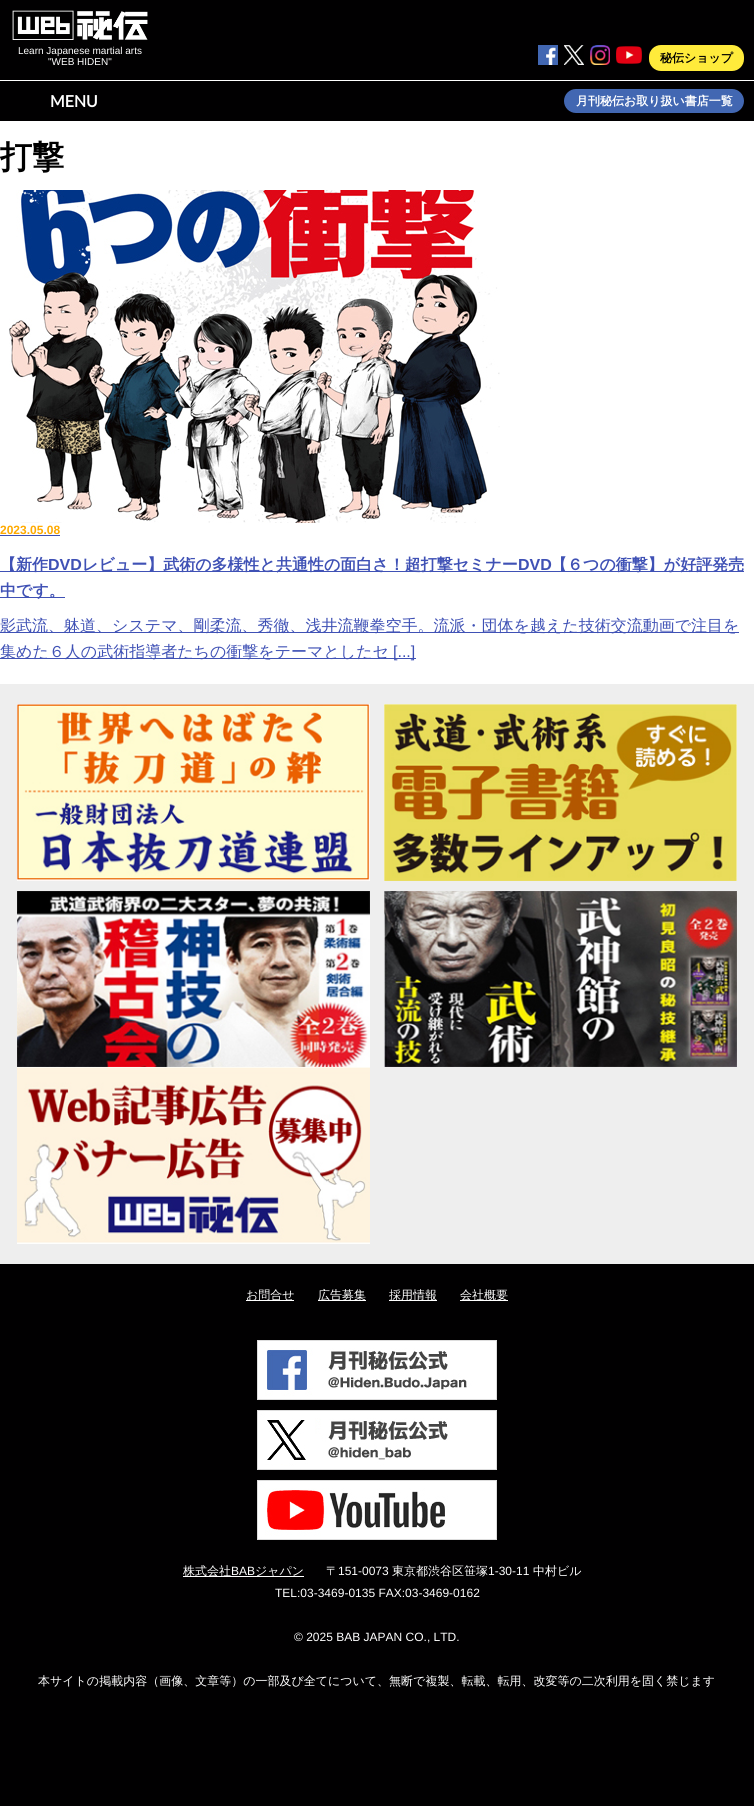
#include <cairo/cairo.h>
#include <math.h>
#include <stddef.h>


static void rounded_rect(cairo_t *cr, double x, double y, double w, double h, double r) {
  cairo_new_sub_path(cr);
  cairo_arc(cr, x + w - r, y + h - r, r, 0, M_PI / 2);
  cairo_arc(cr, x + r, y + h - r, r, M_PI / 2, M_PI);
  cairo_arc(cr, x + r, y + r, r, M_PI, 1.5 * M_PI);
  cairo_arc(cr, x + w - r, y + r, r, 1.5 * M_PI, 2 * M_PI);
  cairo_close_path(cr);
}

static void draw_image(cairo_t *cr, const char *path, double x, double y, double w, double h) {
  cairo_surface_t *image = cairo_image_surface_create_from_png(path);
  cairo_save(cr);
  cairo_set_source_surface(cr, image, x, y);
  cairo_rectangle(cr, x, y, w, h);
  cairo_fill(cr);
  cairo_restore(cr);
  cairo_surface_destroy(image);
}

static void draw(cairo_t *cr) {
  cairo_set_source_rgb(cr, 1, 1, 1);
  cairo_paint(cr);
  cairo_set_source_rgb(cr, 1 / 255.0, 0, 1 / 255.0);
  cairo_rectangle(cr, 0, 0, 754, 121);
  cairo_fill(cr);
  cairo_set_source_rgb(cr, 1, 1, 1);
  cairo_rectangle(cr, 0, 80, 754, 1);
  cairo_fill(cr);
  draw_image(cr, "images/1.png", 12, 10, 136, 30);
  draw_image(cr, "images/2.png", 538, 45, 20, 20);
  draw_image(cr, "images/3.png", 564, 45, 20, 20);
  draw_image(cr, "images/4.png", 590, 45, 20, 20);
  draw_image(cr, "images/5.png", 616, 46, 26, 18);
  cairo_set_source_rgb(cr, 1, 235 / 255.0, 59 / 255.0);
  rounded_rect(cr, 649, 45, 95, 26, 12);
  cairo_fill(cr);
  cairo_set_source_rgb(cr, 66 / 255.0, 103 / 255.0, 178 / 255.0);
  rounded_rect(cr, 564, 89, 180, 24, 12);
  cairo_fill(cr);
  draw_image(cr, "images/6.png", 9, 190, 491, 333);
  cairo_set_source_rgb(cr, 63 / 255.0, 81 / 255.0, 181 / 255.0);
  cairo_rectangle(cr, 0, 535, 60, 1);
  cairo_fill(cr);
  cairo_rectangle(cr, 0, 571, 744, 1);
  cairo_fill(cr);
  cairo_rectangle(cr, 0, 597, 65, 1);
  cairo_fill(cr);
  cairo_rectangle(cr, 0, 632, 739, 1);
  cairo_fill(cr);
  cairo_rectangle(cr, 0, 658, 416, 1);
  cairo_fill(cr);
  cairo_set_source_rgb(cr, 238 / 255.0, 238 / 255.0, 238 / 255.0);
  cairo_rectangle(cr, 0, 684, 754, 580);
  cairo_fill(cr);
  draw_image(cr, "images/7.png", 17, 704, 353, 177);
  draw_image(cr, "images/8.png", 384, 704, 353, 177);
  draw_image(cr, "images/9.png", 17, 891, 353, 176);
  draw_image(cr, "images/10.png", 384, 891, 353, 176);
  draw_image(cr, "images/11.png", 17, 1067, 353, 177);
  cairo_set_source_rgb(cr, 1 / 255.0, 0, 1 / 255.0);
  cairo_rectangle(cr, 0, 1264, 754, 542);
  cairo_fill(cr);
  cairo_set_source_rgb(cr, 1, 1, 1);
  cairo_rectangle(cr, 246, 1300, 48, 1);
  cairo_fill(cr);
  cairo_rectangle(cr, 318, 1300, 48, 1);
  cairo_fill(cr);
  cairo_rectangle(cr, 389, 1300, 48, 1);
  cairo_fill(cr);
  cairo_rectangle(cr, 460, 1300, 48, 1);
  cairo_fill(cr);
  draw_image(cr, "images/12.png", 257, 1340, 240, 60);
  draw_image(cr, "images/13.png", 257, 1410, 240, 60);
  draw_image(cr, "images/14.png", 257, 1480, 240, 60);
  cairo_rectangle(cr, 183, 1576, 121, 1);
  cairo_fill(cr);
  cairo_select_font_face(cr, "Liberation Sans", CAIRO_FONT_SLANT_NORMAL, CAIRO_FONT_WEIGHT_NORMAL);
  cairo_set_font_size(cr, 10);
  cairo_move_to(cr, 18, 54);
  cairo_show_text(cr, "Learn Japanese martial arts");
  cairo_move_to(cr, 48, 65);
  cairo_show_text(cr, "\"WEB HIDEN\"");
  cairo_select_font_face(cr, "WenQuanYi Zen Hei", CAIRO_FONT_SLANT_NORMAL, CAIRO_FONT_WEIGHT_BOLD);
  cairo_set_font_size(cr, 12);
  cairo_set_source_rgb(cr, 0, 0, 0);
  cairo_move_to(cr, 660, 62);
  cairo_show_text(cr, "秘伝ショップ");
  cairo_select_font_face(cr, "Lato", CAIRO_FONT_SLANT_NORMAL, CAIRO_FONT_WEIGHT_BOLD);
  cairo_set_font_size(cr, 16);
  cairo_set_source_rgb(cr, 1, 1, 1);
  cairo_move_to(cr, 50, 107);
  cairo_show_text(cr, "MENU");
  cairo_select_font_face(cr, "WenQuanYi Zen Hei", CAIRO_FONT_SLANT_NORMAL, CAIRO_FONT_WEIGHT_BOLD);
  cairo_set_font_size(cr, 12);
  cairo_move_to(cr, 576, 105);
  cairo_show_text(cr, "月刊秘伝お取り扱い書店一覧");
  cairo_set_font_size(cr, 32);
  cairo_set_source_rgb(cr, 0, 0, 0);
  cairo_move_to(cr, 0, 168);
  cairo_show_text(cr, "打撃");
  cairo_select_font_face(cr, "Liberation Sans", CAIRO_FONT_SLANT_NORMAL, CAIRO_FONT_WEIGHT_BOLD);
  cairo_set_font_size(cr, 12);
  cairo_set_source_rgb(cr, 1, 170 / 255.0, 0);
  cairo_move_to(cr, 0, 534);
  cairo_show_text(cr, "2023.05.08");
  cairo_select_font_face(cr, "WenQuanYi Zen Hei", CAIRO_FONT_SLANT_NORMAL, CAIRO_FONT_WEIGHT_BOLD);
  cairo_set_font_size(cr, 16);
  cairo_set_source_rgb(cr, 63 / 255.0, 81 / 255.0, 181 / 255.0);
  cairo_move_to(cr, 0, 570);
  cairo_show_text(cr, "【新作");
  cairo_select_font_face(cr, "Liberation Sans", CAIRO_FONT_SLANT_NORMAL, CAIRO_FONT_WEIGHT_BOLD);
  cairo_move_to(cr, 48, 570);
  cairo_show_text(cr, "DVD");
  cairo_select_font_face(cr, "WenQuanYi Zen Hei", CAIRO_FONT_SLANT_NORMAL, CAIRO_FONT_WEIGHT_BOLD);
  cairo_move_to(cr, 82, 570);
  cairo_show_text(cr, "レビュー】武術の多様性と共通性の面白さ！超打撃セミナー");
  cairo_select_font_face(cr, "Liberation Sans", CAIRO_FONT_SLANT_NORMAL, CAIRO_FONT_WEIGHT_BOLD);
  cairo_move_to(cr, 518, 570);
  cairo_show_text(cr, "DVD");
  cairo_select_font_face(cr, "WenQuanYi Zen Hei", CAIRO_FONT_SLANT_NORMAL, CAIRO_FONT_WEIGHT_BOLD);
  cairo_move_to(cr, 551, 570);
  cairo_show_text(cr, "【６つの衝撃】が好評発売");
  cairo_move_to(cr, 0, 596);
  cairo_show_text(cr, "中です。");
  cairo_select_font_face(cr, "WenQuanYi Zen Hei Medium", CAIRO_FONT_SLANT_NORMAL, CAIRO_FONT_WEIGHT_NORMAL);
  cairo_move_to(cr, 0, 631);
  cairo_show_text(cr, "影武流、躰道、システマ、剛柔流、秀徹、浅井流鞭拳空手。流派・団体を越えた技術交流動画で注目を");
  cairo_move_to(cr, 0, 657);
  cairo_show_text(cr, "集めた６人の武術指導者たちの衝撃をテーマとしたセ");
  cairo_select_font_face(cr, "Liberation Sans", CAIRO_FONT_SLANT_NORMAL, CAIRO_FONT_WEIGHT_NORMAL);
  cairo_move_to(cr, 393, 657);
  cairo_show_text(cr, "[...]");
  cairo_select_font_face(cr, "WenQuanYi Zen Hei Medium", CAIRO_FONT_SLANT_NORMAL, CAIRO_FONT_WEIGHT_NORMAL);
  cairo_set_font_size(cr, 12);
  cairo_set_source_rgb(cr, 1, 1, 1);
  cairo_move_to(cr, 246, 1299);
  cairo_show_text(cr, "お問合せ");
  cairo_move_to(cr, 318, 1299);
  cairo_show_text(cr, "広告募集");
  cairo_move_to(cr, 389, 1299);
  cairo_show_text(cr, "採用情報");
  cairo_move_to(cr, 460, 1299);
  cairo_show_text(cr, "会社概要");
  cairo_move_to(cr, 183, 1575);
  cairo_show_text(cr, "株式会社");
  cairo_select_font_face(cr, "Liberation Sans", CAIRO_FONT_SLANT_NORMAL, CAIRO_FONT_WEIGHT_NORMAL);
  cairo_move_to(cr, 231, 1575);
  cairo_show_text(cr, "BAB");
  cairo_select_font_face(cr, "WenQuanYi Zen Hei Medium", CAIRO_FONT_SLANT_NORMAL, CAIRO_FONT_WEIGHT_NORMAL);
  cairo_move_to(cr, 255, 1575);
  cairo_show_text(cr, "ジャパン");
  cairo_move_to(cr, 326, 1575);
  cairo_show_text(cr, "〒");
  cairo_select_font_face(cr, "Liberation Sans", CAIRO_FONT_SLANT_NORMAL, CAIRO_FONT_WEIGHT_NORMAL);
  cairo_move_to(cr, 338, 1575);
  cairo_show_text(cr, "151-0073");
  cairo_select_font_face(cr, "WenQuanYi Zen Hei Medium", CAIRO_FONT_SLANT_NORMAL, CAIRO_FONT_WEIGHT_NORMAL);
  cairo_move_to(cr, 392, 1575);
  cairo_show_text(cr, "東京都渋谷区笹塚");
  cairo_select_font_face(cr, "Liberation Sans", CAIRO_FONT_SLANT_NORMAL, CAIRO_FONT_WEIGHT_NORMAL);
  cairo_move_to(cr, 488, 1575);
  cairo_show_text(cr, "1-30-11");
  cairo_select_font_face(cr, "WenQuanYi Zen Hei Medium", CAIRO_FONT_SLANT_NORMAL, CAIRO_FONT_WEIGHT_NORMAL);
  cairo_move_to(cr, 533, 1575);
  cairo_show_text(cr, "中村ビル");
  cairo_select_font_face(cr, "Liberation Sans", CAIRO_FONT_SLANT_NORMAL, CAIRO_FONT_WEIGHT_NORMAL);
  cairo_move_to(cr, 275, 1597);
  cairo_show_text(cr, "TEL:03-3469-0135 FAX:03-3469-0162");
  cairo_move_to(cr, 294, 1641);
  cairo_show_text(cr, "© 2025 BAB JAPAN CO., LTD.");
  cairo_select_font_face(cr, "WenQuanYi Zen Hei Medium", CAIRO_FONT_SLANT_NORMAL, CAIRO_FONT_WEIGHT_NORMAL);
  cairo_move_to(cr, 38, 1685);
  cairo_show_text(cr, "本サイトの掲載内容（画像、文章等）の一部及び全てについて、無断で複製、転載、転用、改変等の二次利用を固く禁じます");
}

int main(void) {
  cairo_surface_t *surface = cairo_image_surface_create(CAIRO_FORMAT_RGB24, 754, 1806);
  cairo_t *cr = cairo_create(surface);
  cairo_font_options_t *options = cairo_font_options_create();
  cairo_font_options_set_hint_metrics(options, CAIRO_HINT_METRICS_OFF);
  cairo_font_options_set_hint_style(options, CAIRO_HINT_STYLE_NONE);
  cairo_set_font_options(cr, options);
  cairo_set_miter_limit(cr, 4);
  draw(cr);
  cairo_surface_write_to_png(surface, "out.png");
  cairo_font_options_destroy(options);
  cairo_destroy(cr);
  cairo_surface_destroy(surface);
  return 0;
}
